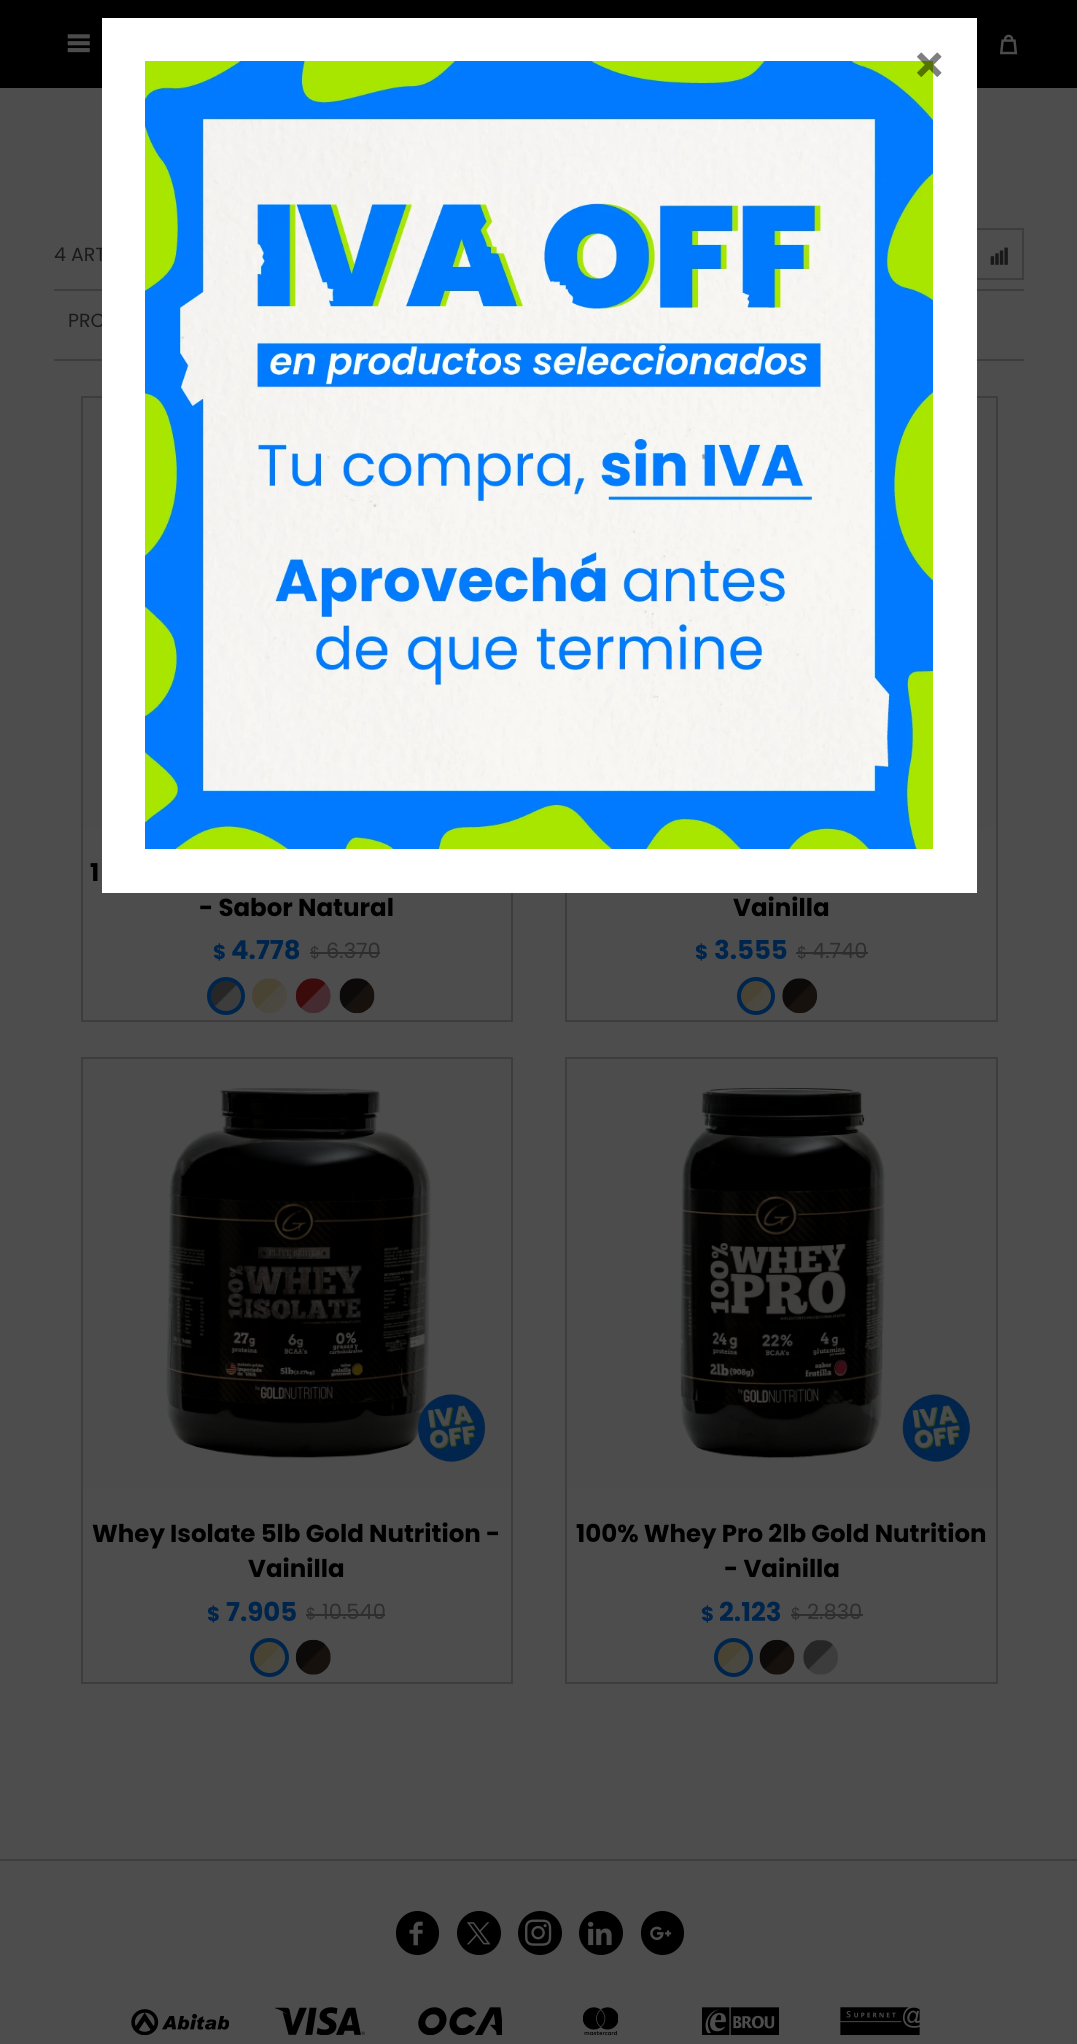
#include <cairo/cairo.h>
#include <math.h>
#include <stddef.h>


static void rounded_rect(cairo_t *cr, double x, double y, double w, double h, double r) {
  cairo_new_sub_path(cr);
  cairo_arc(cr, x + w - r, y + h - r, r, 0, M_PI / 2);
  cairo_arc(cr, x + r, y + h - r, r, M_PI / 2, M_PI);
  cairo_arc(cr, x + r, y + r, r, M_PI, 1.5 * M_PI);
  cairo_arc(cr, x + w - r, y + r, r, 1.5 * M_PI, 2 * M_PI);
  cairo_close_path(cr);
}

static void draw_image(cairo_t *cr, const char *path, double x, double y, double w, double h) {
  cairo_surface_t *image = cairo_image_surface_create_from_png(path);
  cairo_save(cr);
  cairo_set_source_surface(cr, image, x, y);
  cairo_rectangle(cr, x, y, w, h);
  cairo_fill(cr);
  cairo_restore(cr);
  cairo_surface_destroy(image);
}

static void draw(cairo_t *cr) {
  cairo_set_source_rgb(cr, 77 / 255.0, 77 / 255.0, 77 / 255.0);
  cairo_paint(cr);
  cairo_set_source_rgb(cr, 0, 0, 0);
  cairo_rectangle(cr, 0, 0, 1077, 88);
  cairo_fill(cr);
  draw_image(cr, "images/3.png", 67, 34, 23, 19);
  draw_image(cr, "images/4.png", 999, 34, 19, 21);
  cairo_set_source_rgb(cr, 61 / 255.0, 61 / 255.0, 61 / 255.0);
  cairo_rectangle(cr, 54, 359, 970, 2);
  cairo_fill(cr);
  cairo_rectangle(cr, 806, 229, 217, 50);
  cairo_stroke(cr);
  draw_image(cr, "images/5.png", 990, 247, 18, 18);
  cairo_rectangle(cr, 54, 289, 970, 2);
  cairo_fill(cr);
  draw_image(cr, "images/6.png", 83, 398, 19, 430);
  cairo_set_source_rgb(cr, 46 / 255.0, 46 / 255.0, 46 / 255.0);
  cairo_rectangle(cr, 310, 952, 70, 2);
  cairo_fill(cr);
  draw_image(cr, "images/7.png", 211, 981, 30, 30);
  cairo_arc(cr, 226, 996, 17, 0, 2 * M_PI);
  cairo_set_source_rgb(cr, 0, 37 / 255.0, 77 / 255.0);
  cairo_set_line_width(cr, 4);
  cairo_stroke(cr);
  draw_image(cr, "images/8.png", 252, 978, 35, 35);
  draw_image(cr, "images/9.png", 295, 978, 36, 36);
  draw_image(cr, "images/10.png", 339, 978, 36, 36);
  cairo_rectangle(cr, 82, 397, 430, 624);
  cairo_set_source_rgb(cr, 61 / 255.0, 61 / 255.0, 61 / 255.0);
  cairo_set_line_width(cr, 2);
  cairo_stroke(cr);
  draw_image(cr, "images/6.png", 977, 398, 19, 430);
  cairo_set_source_rgb(cr, 46 / 255.0, 46 / 255.0, 46 / 255.0);
  cairo_rectangle(cr, 796, 952, 72, 2);
  cairo_fill(cr);
  draw_image(cr, "images/11.png", 741, 981, 30, 30);
  cairo_arc(cr, 756, 996, 17, 0, 2 * M_PI);
  cairo_set_source_rgb(cr, 0, 37 / 255.0, 77 / 255.0);
  cairo_set_line_width(cr, 4);
  cairo_stroke(cr);
  draw_image(cr, "images/12.png", 782, 978, 36, 36);
  cairo_rectangle(cr, 566, 397, 431, 624);
  cairo_set_source_rgb(cr, 61 / 255.0, 61 / 255.0, 61 / 255.0);
  cairo_set_line_width(cr, 2);
  cairo_stroke(cr);
  draw_image(cr, "images/13.png", 83, 1059, 428, 430);
  draw_image(cr, "images/14.png", 418, 1394, 67, 68);
  cairo_set_source_rgb(cr, 46 / 255.0, 46 / 255.0, 46 / 255.0);
  cairo_rectangle(cr, 306, 1614, 79, 2);
  cairo_fill(cr);
  draw_image(cr, "images/15.png", 254, 1642, 31, 31);
  cairo_arc(cr, 269.5, 1657.5, 17.5, 0, 2 * M_PI);
  cairo_set_source_rgb(cr, 0, 37 / 255.0, 77 / 255.0);
  cairo_set_line_width(cr, 4);
  cairo_stroke(cr);
  draw_image(cr, "images/16.png", 295, 1639, 36, 36);
  cairo_rectangle(cr, 82, 1058, 430, 625);
  cairo_set_source_rgb(cr, 61 / 255.0, 61 / 255.0, 61 / 255.0);
  cairo_set_line_width(cr, 2);
  cairo_stroke(cr);
  draw_image(cr, "images/17.png", 567, 1059, 429, 430);
  draw_image(cr, "images/18.png", 902, 1394, 68, 68);
  cairo_set_source_rgb(cr, 46 / 255.0, 46 / 255.0, 46 / 255.0);
  cairo_rectangle(cr, 791, 1614, 72, 2);
  cairo_fill(cr);
  draw_image(cr, "images/19.png", 718, 1642, 31, 31);
  cairo_arc(cr, 733.5, 1657.5, 17.5, 0, 2 * M_PI);
  cairo_set_source_rgb(cr, 0, 37 / 255.0, 77 / 255.0);
  cairo_set_line_width(cr, 4);
  cairo_stroke(cr);
  draw_image(cr, "images/20.png", 759, 1639, 36, 36);
  draw_image(cr, "images/21.png", 803, 1639, 35, 36);
  cairo_rectangle(cr, 566, 1058, 431, 625);
  cairo_set_source_rgb(cr, 61 / 255.0, 61 / 255.0, 61 / 255.0);
  cairo_set_line_width(cr, 2);
  cairo_stroke(cr);
  cairo_rectangle(cr, 0, 1859, 1077, 2);
  cairo_fill(cr);
  cairo_set_source_rgb(cr, 0, 0, 0);
  rounded_rect(cr, 396, 1911, 43, 44, 21.5);
  cairo_fill(cr);
  draw_image(cr, "images/22.png", 409, 1921, 14, 25);
  cairo_arc(cr, 479, 1933, 22, 0, 2 * M_PI);
  cairo_fill(cr);
  draw_image(cr, "images/23.png", 466, 1922, 25, 23);
  cairo_arc(cr, 540, 1933, 22, 0, 2 * M_PI);
  cairo_fill(cr);
  draw_image(cr, "images/24.png", 525, 1919, 27, 27);
  cairo_arc(cr, 601, 1933, 22, 0, 2 * M_PI);
  cairo_fill(cr);
  draw_image(cr, "images/25.png", 588, 1921, 24, 25);
  rounded_rect(cr, 641, 1911, 43, 44, 21.5);
  cairo_fill(cr);
  draw_image(cr, "images/26.png", 650, 1926, 22, 14);
  draw_image(cr, "images/27.png", 131, 2009, 98, 26);
  draw_image(cr, "images/28.png", 275, 2007, 90, 28);
  draw_image(cr, "images/29.png", 418, 2007, 84, 28);
  draw_image(cr, "images/30.png", 583, 2007, 35, 28);
  draw_image(cr, "images/31.png", 702, 2007, 77, 28);
  draw_image(cr, "images/32.png", 840, 2007, 80, 28);
  cairo_select_font_face(cr, "Poppins", CAIRO_FONT_SLANT_NORMAL, CAIRO_FONT_WEIGHT_NORMAL);
  cairo_set_font_size(cr, 19);
  cairo_set_source_rgb(cr, 26 / 255.0, 26 / 255.0, 26 / 255.0);
  cairo_move_to(cr, 54, 261);
  cairo_show_text(cr, "4 ART");
  cairo_move_to(cr, 68, 327);
  cairo_show_text(cr, "PRO");
  cairo_set_source_rgb(cr, 1, 1, 1);
  cairo_rectangle(cr, 102, 18, 875, 875);
  cairo_fill(cr);
  draw_image(cr, "images/2.png", 145, 61, 788, 788);
  draw_image(cr, "images/1.png", 917, 52, 25, 25);
  cairo_select_font_face(cr, "Poppins", CAIRO_FONT_SLANT_NORMAL, CAIRO_FONT_WEIGHT_BOLD);
  cairo_set_font_size(cr, 24.5);
  cairo_set_source_rgb(cr, 0, 0, 0);
  cairo_move_to(cr, 90, 881);
  cairo_show_text(cr, "1");
  cairo_move_to(cr, 199, 916);
  cairo_show_text(cr, "- Sabor Natural");
  cairo_set_font_size(cr, 20);
  cairo_set_source_rgb(cr, 0, 37 / 255.0, 77 / 255.0);
  cairo_move_to(cr, 213, 959);
  cairo_show_text(cr, "$");
  cairo_set_font_size(cr, 26);
  cairo_move_to(cr, 231, 959);
  cairo_show_text(cr, "4.778");
  cairo_select_font_face(cr, "Poppins", CAIRO_FONT_SLANT_NORMAL, CAIRO_FONT_WEIGHT_NORMAL);
  cairo_set_font_size(cr, 16);
  cairo_set_source_rgb(cr, 46 / 255.0, 46 / 255.0, 46 / 255.0);
  cairo_move_to(cr, 310, 958);
  cairo_show_text(cr, "$");
  cairo_set_font_size(cr, 21);
  cairo_move_to(cr, 326, 958);
  cairo_show_text(cr, "6.370");
  cairo_select_font_face(cr, "Poppins", CAIRO_FONT_SLANT_NORMAL, CAIRO_FONT_WEIGHT_BOLD);
  cairo_set_font_size(cr, 24.5);
  cairo_set_source_rgb(cr, 0, 0, 0);
  cairo_move_to(cr, 733, 916);
  cairo_show_text(cr, "Vainilla");
  cairo_set_font_size(cr, 20);
  cairo_set_source_rgb(cr, 0, 37 / 255.0, 77 / 255.0);
  cairo_move_to(cr, 695, 959);
  cairo_show_text(cr, "$");
  cairo_set_font_size(cr, 26);
  cairo_move_to(cr, 714, 959);
  cairo_show_text(cr, "3.555");
  cairo_select_font_face(cr, "Poppins", CAIRO_FONT_SLANT_NORMAL, CAIRO_FONT_WEIGHT_NORMAL);
  cairo_set_font_size(cr, 16);
  cairo_set_source_rgb(cr, 46 / 255.0, 46 / 255.0, 46 / 255.0);
  cairo_move_to(cr, 797, 958);
  cairo_show_text(cr, "$");
  cairo_set_font_size(cr, 21);
  cairo_move_to(cr, 812, 958);
  cairo_show_text(cr, "4.740");
  cairo_select_font_face(cr, "Poppins", CAIRO_FONT_SLANT_NORMAL, CAIRO_FONT_WEIGHT_BOLD);
  cairo_set_font_size(cr, 24.5);
  cairo_set_source_rgb(cr, 0, 0, 0);
  cairo_move_to(cr, 92, 1542);
  cairo_show_text(cr, "Whey Isolate 5lb Gold Nutrition -");
  cairo_move_to(cr, 248, 1577);
  cairo_show_text(cr, "Vainilla");
  cairo_set_font_size(cr, 20);
  cairo_set_source_rgb(cr, 0, 37 / 255.0, 77 / 255.0);
  cairo_move_to(cr, 207, 1621);
  cairo_show_text(cr, "$");
  cairo_set_font_size(cr, 26);
  cairo_move_to(cr, 226, 1621);
  cairo_show_text(cr, "7.905");
  cairo_select_font_face(cr, "Poppins", CAIRO_FONT_SLANT_NORMAL, CAIRO_FONT_WEIGHT_NORMAL);
  cairo_set_font_size(cr, 16);
  cairo_set_source_rgb(cr, 46 / 255.0, 46 / 255.0, 46 / 255.0);
  cairo_move_to(cr, 306, 1619);
  cairo_show_text(cr, "$");
  cairo_set_font_size(cr, 21);
  cairo_move_to(cr, 322, 1619);
  cairo_show_text(cr, "10.540");
  cairo_select_font_face(cr, "Poppins", CAIRO_FONT_SLANT_NORMAL, CAIRO_FONT_WEIGHT_BOLD);
  cairo_set_font_size(cr, 24.5);
  cairo_set_source_rgb(cr, 0, 0, 0);
  cairo_move_to(cr, 576, 1542);
  cairo_show_text(cr, "100% Whey Pro 2lb Gold Nutrition");
  cairo_move_to(cr, 724, 1577);
  cairo_show_text(cr, "- Vainilla");
  cairo_set_font_size(cr, 20);
  cairo_set_source_rgb(cr, 0, 37 / 255.0, 77 / 255.0);
  cairo_move_to(cr, 701, 1621);
  cairo_show_text(cr, "$");
  cairo_set_font_size(cr, 26);
  cairo_move_to(cr, 719, 1621);
  cairo_show_text(cr, "2.123");
  cairo_select_font_face(cr, "Poppins", CAIRO_FONT_SLANT_NORMAL, CAIRO_FONT_WEIGHT_NORMAL);
  cairo_set_font_size(cr, 16);
  cairo_set_source_rgb(cr, 46 / 255.0, 46 / 255.0, 46 / 255.0);
  cairo_move_to(cr, 791, 1619);
  cairo_show_text(cr, "$");
  cairo_set_font_size(cr, 21);
  cairo_move_to(cr, 807, 1619);
  cairo_show_text(cr, "2.830");
}

int main(void) {
  cairo_surface_t *surface = cairo_image_surface_create(CAIRO_FORMAT_RGB24, 1077, 2044);
  cairo_t *cr = cairo_create(surface);
  cairo_font_options_t *options = cairo_font_options_create();
  cairo_font_options_set_hint_metrics(options, CAIRO_HINT_METRICS_OFF);
  cairo_font_options_set_hint_style(options, CAIRO_HINT_STYLE_NONE);
  cairo_set_font_options(cr, options);
  cairo_set_miter_limit(cr, 4);
  draw(cr);
  cairo_surface_write_to_png(surface, "out.png");
  cairo_font_options_destroy(options);
  cairo_destroy(cr);
  cairo_surface_destroy(surface);
  return 0;
}
